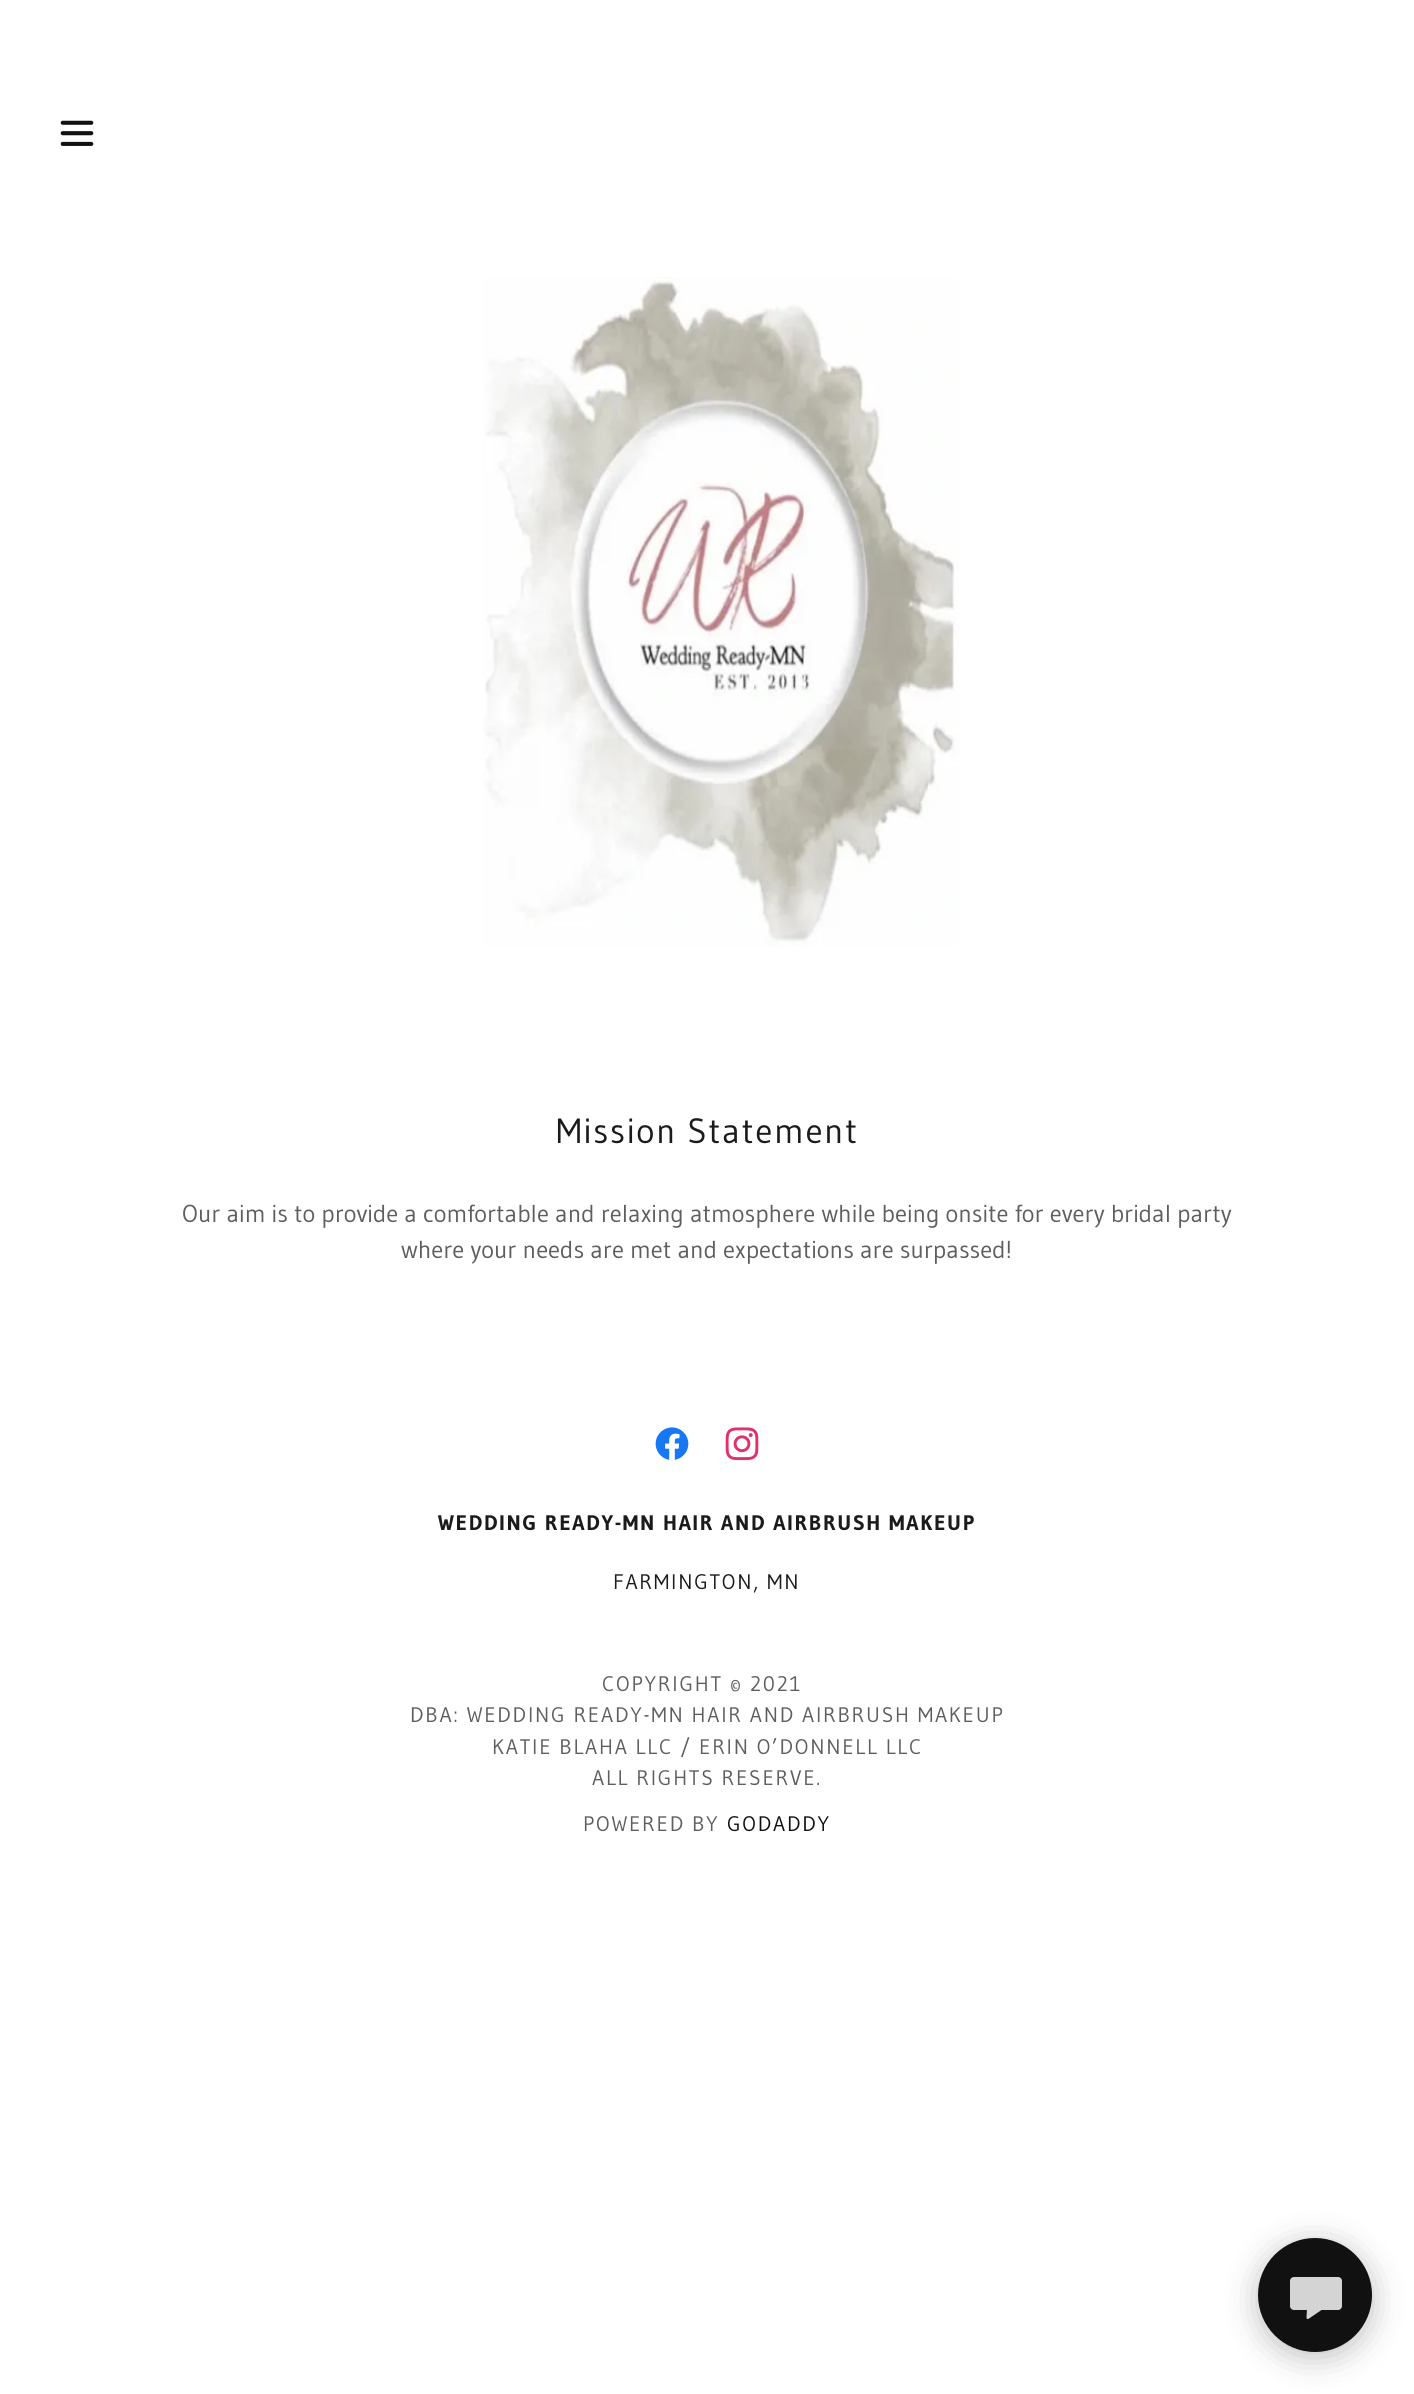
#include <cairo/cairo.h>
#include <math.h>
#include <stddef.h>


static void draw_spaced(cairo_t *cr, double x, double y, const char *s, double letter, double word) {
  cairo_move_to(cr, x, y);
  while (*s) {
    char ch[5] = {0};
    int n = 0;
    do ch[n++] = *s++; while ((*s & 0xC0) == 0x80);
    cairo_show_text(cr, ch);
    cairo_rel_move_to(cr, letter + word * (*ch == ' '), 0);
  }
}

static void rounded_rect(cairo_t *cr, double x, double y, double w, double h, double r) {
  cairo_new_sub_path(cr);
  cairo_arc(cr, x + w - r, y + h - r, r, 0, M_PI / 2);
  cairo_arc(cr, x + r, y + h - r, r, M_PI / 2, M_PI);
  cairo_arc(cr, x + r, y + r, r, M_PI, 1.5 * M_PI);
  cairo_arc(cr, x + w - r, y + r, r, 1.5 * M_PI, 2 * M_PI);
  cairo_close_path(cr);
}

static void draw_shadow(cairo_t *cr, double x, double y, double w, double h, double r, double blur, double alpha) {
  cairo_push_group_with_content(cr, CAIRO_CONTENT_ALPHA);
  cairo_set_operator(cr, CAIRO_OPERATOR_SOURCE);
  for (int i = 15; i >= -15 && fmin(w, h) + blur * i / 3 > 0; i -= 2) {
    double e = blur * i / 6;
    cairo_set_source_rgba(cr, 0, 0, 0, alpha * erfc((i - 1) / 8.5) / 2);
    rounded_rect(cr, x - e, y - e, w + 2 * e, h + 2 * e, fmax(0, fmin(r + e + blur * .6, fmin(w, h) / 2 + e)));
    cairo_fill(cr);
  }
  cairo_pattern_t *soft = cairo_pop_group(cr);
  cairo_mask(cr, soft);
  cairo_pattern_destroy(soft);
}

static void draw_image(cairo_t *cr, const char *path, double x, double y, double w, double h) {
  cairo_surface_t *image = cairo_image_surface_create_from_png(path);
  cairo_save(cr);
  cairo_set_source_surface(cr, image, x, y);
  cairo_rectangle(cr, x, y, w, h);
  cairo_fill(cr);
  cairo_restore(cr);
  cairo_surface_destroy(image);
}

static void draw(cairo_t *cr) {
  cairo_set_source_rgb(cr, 1, 1, 1);
  cairo_paint(cr);
  draw_image(cr, "images/1.png", 60, 120, 34, 26);
  draw_image(cr, "images/2.png", 483, 277, 476, 670);
  draw_image(cr, "images/3.png", 655, 1427, 34, 33);
  draw_image(cr, "images/4.png", 725, 1427, 34, 34);
  cairo_set_source_rgb(cr, 0, 0, 0);
  draw_shadow(cr, 1258, 2244, 114, 113, 56.5, 16, 0.25);
  cairo_set_source_rgb(cr, 17 / 255.0, 17 / 255.0, 17 / 255.0);
  cairo_arc(cr, 1315, 2295, 57, 0, 2 * M_PI);
  cairo_fill(cr);
  cairo_set_source_rgb(cr, 212 / 255.0, 212 / 255.0, 212 / 255.0);
  rounded_rect(cr, 1290, 2277, 52, 33, 4);
  cairo_fill(cr);
  cairo_new_path(cr);
  cairo_move_to(cr, 1306.5, 2317);
  cairo_line_to(cr, 1307, 2308.5);
  cairo_curve_to(cr, 1307, 2307.5, 1308, 2306.5, 1309, 2306.5);
  cairo_line_to(cr, 1320.5, 2306.5);
  cairo_curve_to(cr, 1322, 2306.5, 1323, 2309, 1321.5, 2310);
  cairo_line_to(cr, 1309, 2318.5);
  cairo_curve_to(cr, 1308.5, 2319, 1308, 2319, 1307, 2319);
  cairo_curve_to(cr, 1306.5, 2318.5, 1306.5, 2318, 1306.5, 2317);
  cairo_close_path(cr);
  cairo_fill(cr);
  cairo_select_font_face(cr, "Gudea", CAIRO_FONT_SLANT_NORMAL, CAIRO_FONT_WEIGHT_NORMAL);
  cairo_set_font_size(cr, 35);
  cairo_set_source_rgb(cr, 27 / 255.0, 27 / 255.0, 27 / 255.0);
  draw_spaced(cr, 556, 1143, "Mission Statement", 1.6, 0);
  cairo_set_font_size(cr, 24.5);
  cairo_set_source_rgb(cr, 94 / 255.0, 94 / 255.0, 94 / 255.0);
  cairo_move_to(cr, 182, 1222);
  cairo_show_text(cr, "Our aim is to provide a comfortable and relaxing atmosphere while being onsite for every bridal party");
  cairo_move_to(cr, 401, 1258);
  cairo_show_text(cr, "where your needs are met and expectations are surpassed!");
  cairo_select_font_face(cr, "Gudea", CAIRO_FONT_SLANT_NORMAL, CAIRO_FONT_WEIGHT_BOLD);
  cairo_set_font_size(cr, 21);
  cairo_set_source_rgb(cr, 27 / 255.0, 27 / 255.0, 27 / 255.0);
  draw_spaced(cr, 438, 1530, "WEDDING READY-MN HAIR AND AIRBRUSH MAKEUP", 1.75, 0);
  cairo_select_font_face(cr, "Gudea", CAIRO_FONT_SLANT_NORMAL, CAIRO_FONT_WEIGHT_NORMAL);
  draw_spaced(cr, 613, 1589, "FARMINGTON, MN", 1.75, 0);
  cairo_set_source_rgb(cr, 94 / 255.0, 94 / 255.0, 94 / 255.0);
  draw_spaced(cr, 602, 1691, "COPYRIGHT © 2021", 1.75, 0);
  draw_spaced(cr, 410, 1722, "DBA: WEDDING READY-MN HAIR AND AIRBRUSH MAKEUP", 1.75, 0);
  draw_spaced(cr, 492, 1754, "KATIE BLAHA LLC / ERIN O’DONNELL LLC", 1.75, 0);
  draw_spaced(cr, 592, 1785, "ALL RIGHTS RESERVE.", 1.75, 0);
  draw_spaced(cr, 583, 1831, "POWERED BY", 1.75, 0);
  cairo_set_source_rgb(cr, 17 / 255.0, 17 / 255.0, 17 / 255.0);
  draw_spaced(cr, 727, 1831, "GODADDY", 1.75, 0);
}

int main(void) {
  cairo_surface_t *surface = cairo_image_surface_create(CAIRO_FORMAT_RGB24, 1414, 2394);
  cairo_t *cr = cairo_create(surface);
  cairo_font_options_t *options = cairo_font_options_create();
  cairo_font_options_set_hint_metrics(options, CAIRO_HINT_METRICS_OFF);
  cairo_font_options_set_hint_style(options, CAIRO_HINT_STYLE_NONE);
  cairo_set_font_options(cr, options);
  cairo_set_miter_limit(cr, 4);
  draw(cr);
  cairo_surface_write_to_png(surface, "out.png");
  cairo_font_options_destroy(options);
  cairo_destroy(cr);
  cairo_surface_destroy(surface);
  return 0;
}
